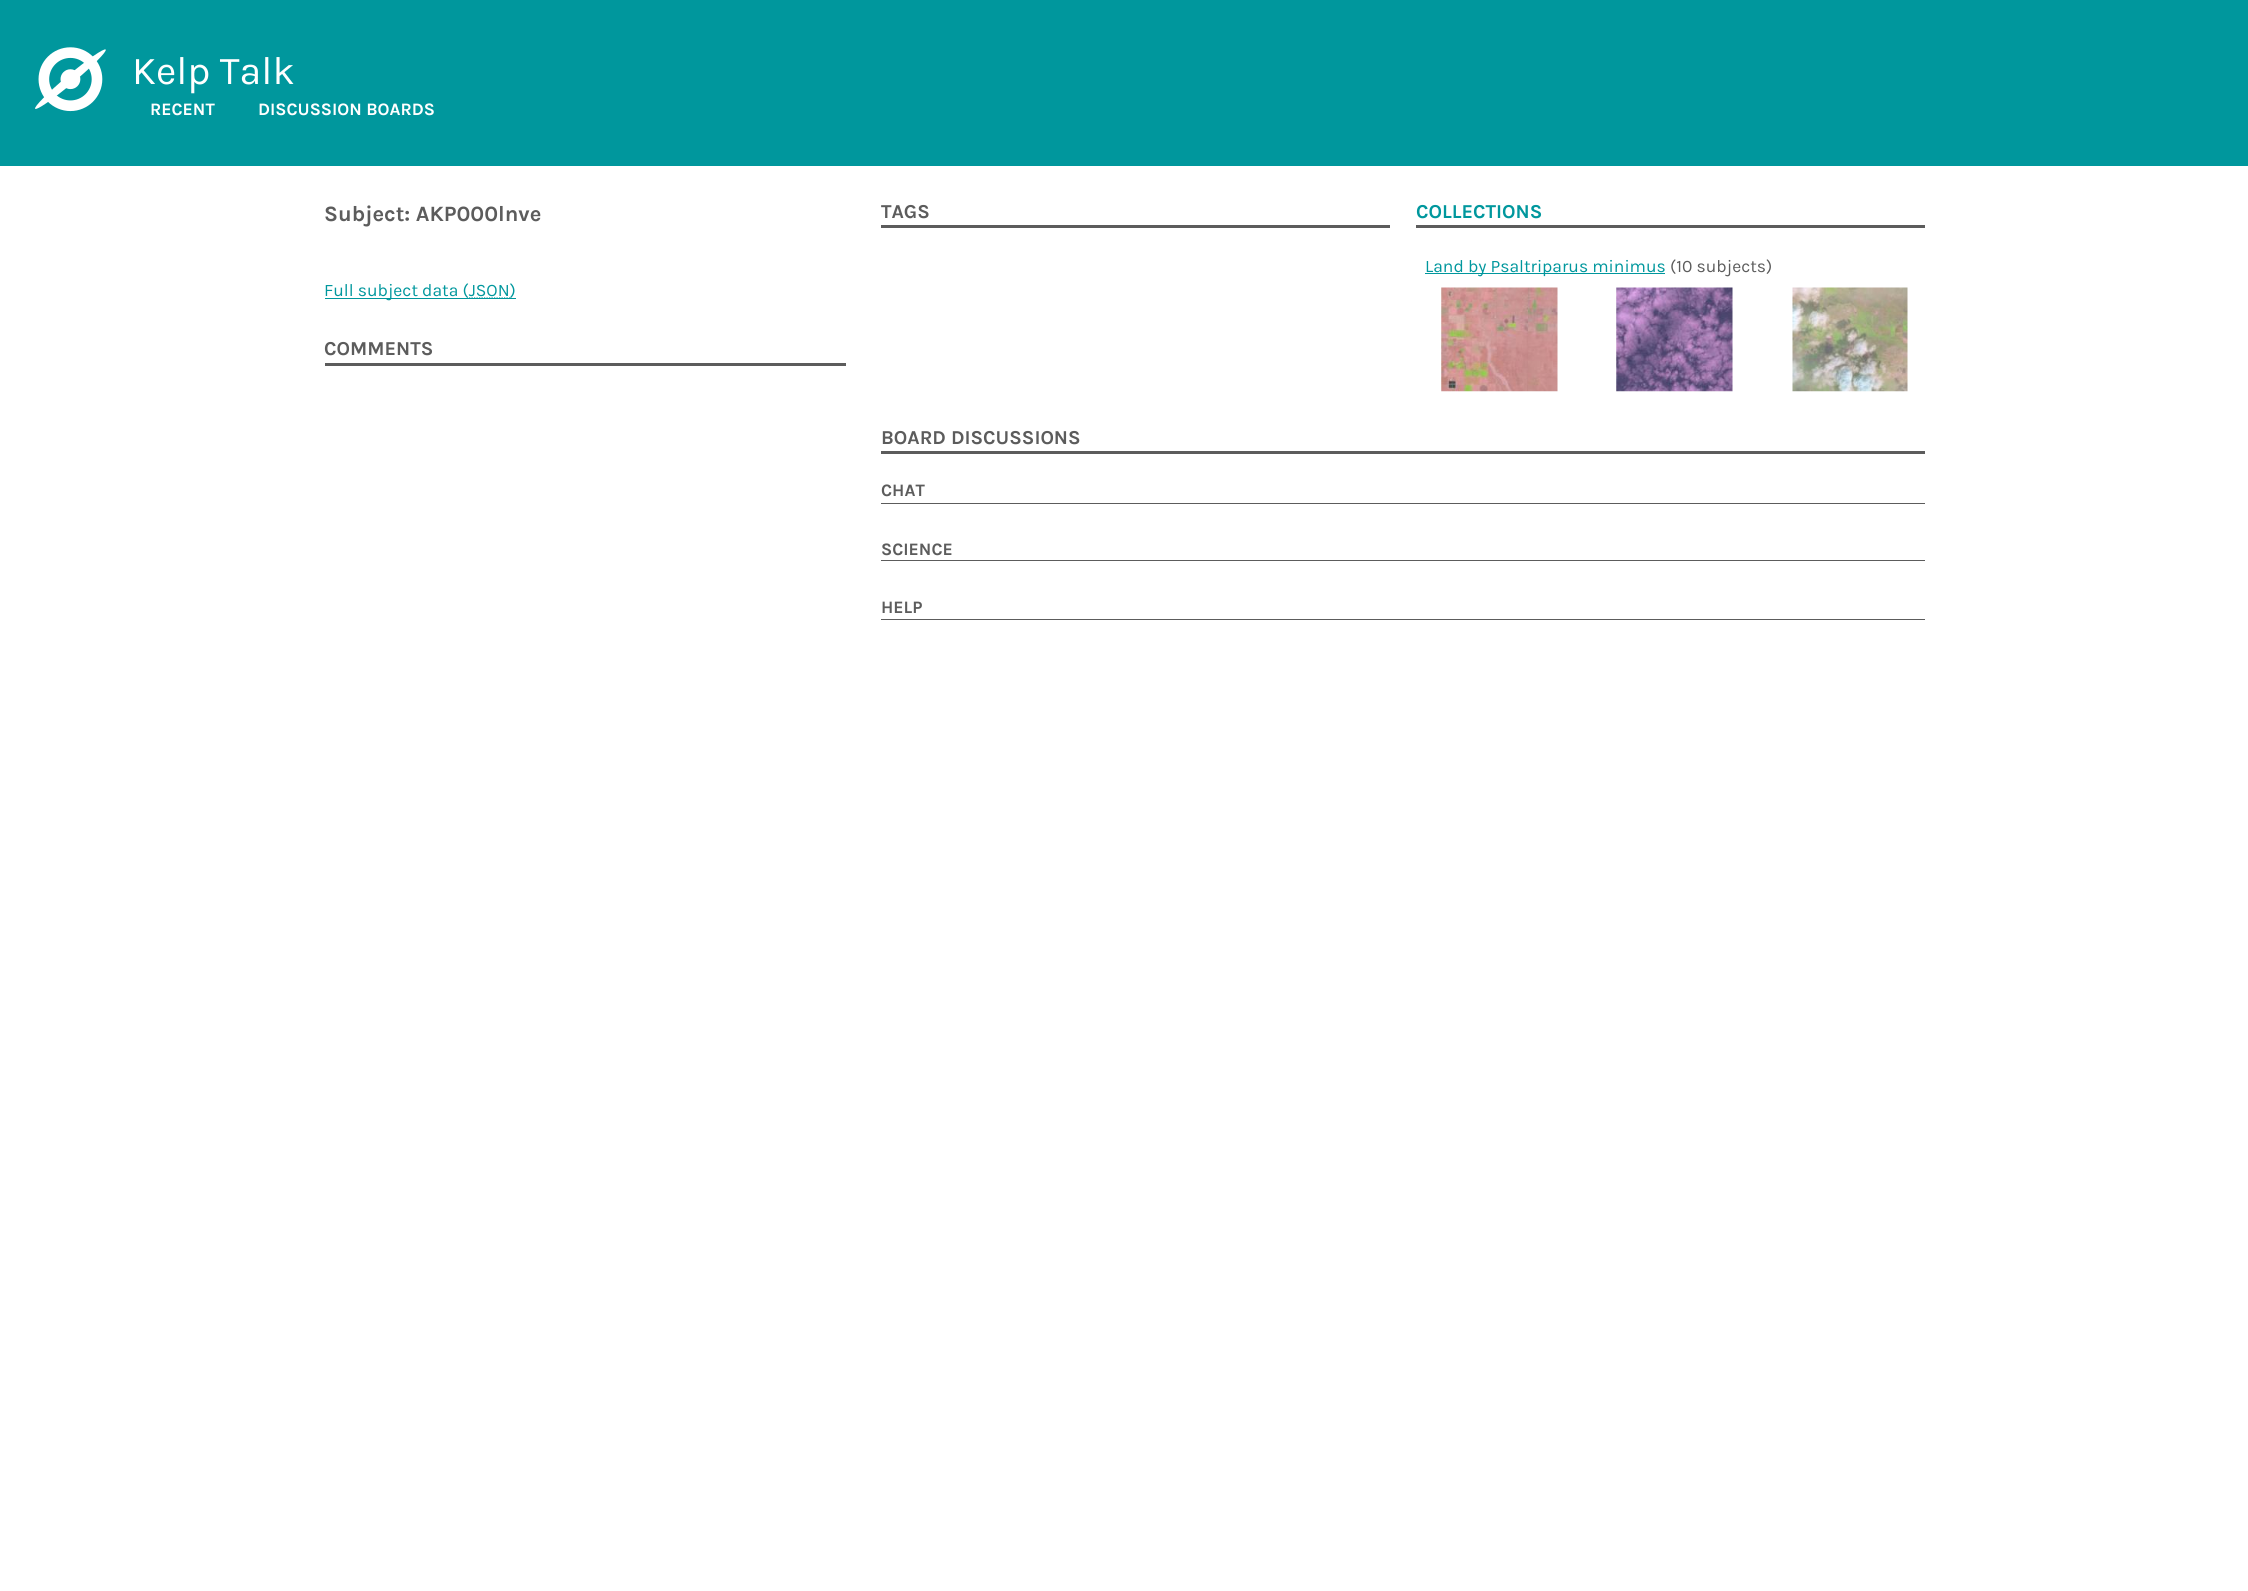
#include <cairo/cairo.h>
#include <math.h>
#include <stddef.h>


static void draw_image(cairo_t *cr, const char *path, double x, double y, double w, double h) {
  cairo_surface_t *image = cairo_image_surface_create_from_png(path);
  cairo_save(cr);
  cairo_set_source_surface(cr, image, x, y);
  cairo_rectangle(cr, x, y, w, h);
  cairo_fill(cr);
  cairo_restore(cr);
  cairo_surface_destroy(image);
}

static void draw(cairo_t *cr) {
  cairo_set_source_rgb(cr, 1, 1, 1);
  cairo_paint(cr);
  cairo_set_source_rgb(cr, 0, 151 / 255.0, 157 / 255.0);
  cairo_rectangle(cr, 0, 0, 2248, 166);
  cairo_fill(cr);
  draw_image(cr, "images/1.png", 35, 47, 71, 65);
  cairo_rectangle(cr, 325, 298, 144, 1);
  cairo_fill(cr);
  cairo_new_path(cr);
  cairo_move_to(cr, 469, 298);
  cairo_line_to(cr, 510, 298);
  cairo_set_line_width(cr, 1.2);
  cairo_set_dash(cr, (double[]){1.25, 1.25}, 2, 0);
  cairo_stroke(cr);
  cairo_rectangle(cr, 469, 298, 47, 1);
  cairo_fill(cr);
  cairo_set_source_rgb(cr, 92 / 255.0, 92 / 255.0, 92 / 255.0);
  cairo_rectangle(cr, 325, 363, 521, 3);
  cairo_fill(cr);
  cairo_rectangle(cr, 881, 225, 509, 3);
  cairo_fill(cr);
  cairo_rectangle(cr, 1416, 225, 509, 3);
  cairo_fill(cr);
  cairo_set_source_rgb(cr, 0, 151 / 255.0, 157 / 255.0);
  cairo_rectangle(cr, 1425, 273, 240, 1);
  cairo_fill(cr);
  draw_image(cr, "images/2.png", 1441, 287, 117, 105);
  draw_image(cr, "images/3.png", 1616, 287, 117, 105);
  draw_image(cr, "images/4.png", 1792, 287, 116, 105);
  cairo_set_source_rgb(cr, 92 / 255.0, 92 / 255.0, 92 / 255.0);
  cairo_rectangle(cr, 881, 451, 1044, 3);
  cairo_fill(cr);
  cairo_rectangle(cr, 881, 503, 1044, 1);
  cairo_fill(cr);
  cairo_rectangle(cr, 881, 560, 1044, 1);
  cairo_fill(cr);
  cairo_rectangle(cr, 881, 619, 1044, 1);
  cairo_fill(cr);
  cairo_select_font_face(cr, "Karla", CAIRO_FONT_SLANT_NORMAL, CAIRO_FONT_WEIGHT_NORMAL);
  cairo_set_font_size(cr, 39.5);
  cairo_set_source_rgb(cr, 1, 1, 1);
  cairo_move_to(cr, 132, 84);
  cairo_show_text(cr, "Kelp Talk");
  cairo_select_font_face(cr, "Karla", CAIRO_FONT_SLANT_NORMAL, CAIRO_FONT_WEIGHT_BOLD);
  cairo_set_font_size(cr, 17.5);
  cairo_move_to(cr, 150, 115);
  cairo_show_text(cr, "RECENT");
  cairo_move_to(cr, 258, 115);
  cairo_show_text(cr, "DISCUSSION BOARDS");
  cairo_set_font_size(cr, 21.9);
  cairo_set_source_rgb(cr, 92 / 255.0, 92 / 255.0, 92 / 255.0);
  cairo_move_to(cr, 324, 221);
  cairo_show_text(cr, "Subject: AKP000lnve");
  cairo_select_font_face(cr, "Karla", CAIRO_FONT_SLANT_NORMAL, CAIRO_FONT_WEIGHT_NORMAL);
  cairo_set_font_size(cr, 17.5);
  cairo_set_source_rgb(cr, 0, 151 / 255.0, 157 / 255.0);
  cairo_move_to(cr, 324, 296);
  cairo_show_text(cr, "Full subject data (JSON)");
  cairo_select_font_face(cr, "Karla", CAIRO_FONT_SLANT_NORMAL, CAIRO_FONT_WEIGHT_BOLD);
  cairo_set_font_size(cr, 19.75);
  cairo_set_source_rgb(cr, 92 / 255.0, 92 / 255.0, 92 / 255.0);
  cairo_move_to(cr, 324, 355);
  cairo_show_text(cr, "COMMENTS");
  cairo_move_to(cr, 881, 218);
  cairo_show_text(cr, "TAGS");
  cairo_set_source_rgb(cr, 0, 151 / 255.0, 157 / 255.0);
  cairo_move_to(cr, 1416, 218);
  cairo_show_text(cr, "COLLECTIONS");
  cairo_select_font_face(cr, "Karla", CAIRO_FONT_SLANT_NORMAL, CAIRO_FONT_WEIGHT_NORMAL);
  cairo_set_font_size(cr, 17.5);
  cairo_move_to(cr, 1425, 272);
  cairo_show_text(cr, "Land by Psaltriparus minimus");
  cairo_set_source_rgb(cr, 92 / 255.0, 92 / 255.0, 92 / 255.0);
  cairo_move_to(cr, 1670, 272);
  cairo_show_text(cr, "(10 subjects)");
  cairo_select_font_face(cr, "Karla", CAIRO_FONT_SLANT_NORMAL, CAIRO_FONT_WEIGHT_BOLD);
  cairo_set_font_size(cr, 19.75);
  cairo_move_to(cr, 881, 444);
  cairo_show_text(cr, "BOARD DISCUSSIONS");
  cairo_set_font_size(cr, 17.5);
  cairo_move_to(cr, 881, 496);
  cairo_show_text(cr, "CHAT");
  cairo_move_to(cr, 881, 555);
  cairo_show_text(cr, "SCIENCE");
  cairo_move_to(cr, 881, 613);
  cairo_show_text(cr, "HELP");
}

int main(void) {
  cairo_surface_t *surface = cairo_image_surface_create(CAIRO_FORMAT_RGB24, 2248, 1591);
  cairo_t *cr = cairo_create(surface);
  cairo_font_options_t *options = cairo_font_options_create();
  cairo_font_options_set_hint_metrics(options, CAIRO_HINT_METRICS_OFF);
  cairo_font_options_set_hint_style(options, CAIRO_HINT_STYLE_NONE);
  cairo_set_font_options(cr, options);
  cairo_set_miter_limit(cr, 4);
  draw(cr);
  cairo_surface_write_to_png(surface, "out.png");
  cairo_font_options_destroy(options);
  cairo_destroy(cr);
  cairo_surface_destroy(surface);
  return 0;
}
